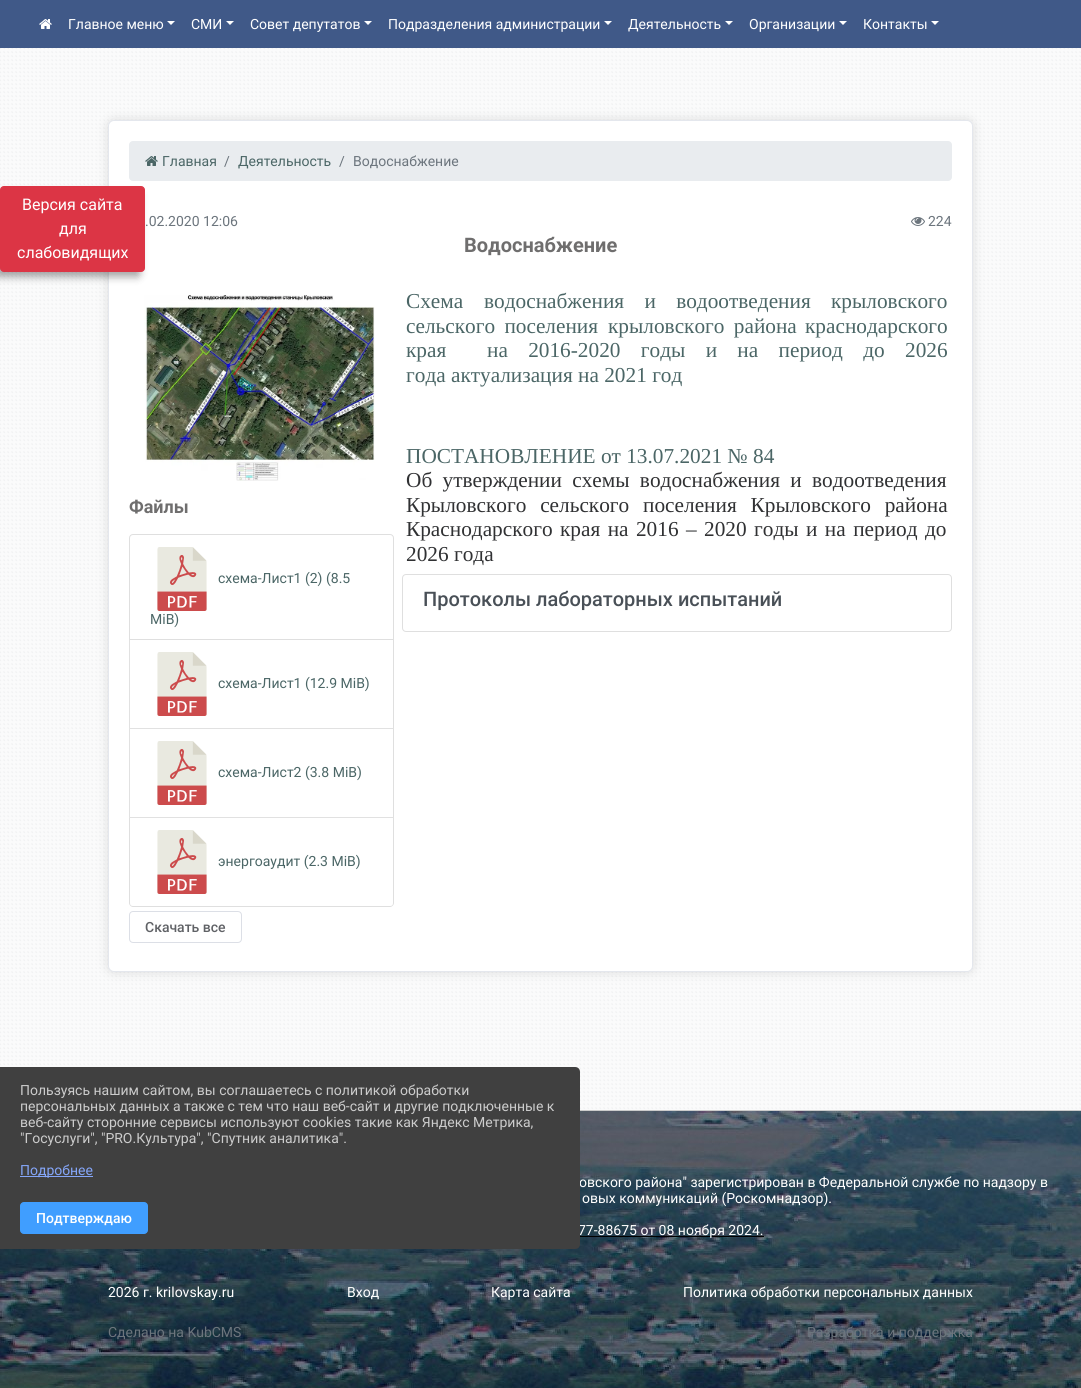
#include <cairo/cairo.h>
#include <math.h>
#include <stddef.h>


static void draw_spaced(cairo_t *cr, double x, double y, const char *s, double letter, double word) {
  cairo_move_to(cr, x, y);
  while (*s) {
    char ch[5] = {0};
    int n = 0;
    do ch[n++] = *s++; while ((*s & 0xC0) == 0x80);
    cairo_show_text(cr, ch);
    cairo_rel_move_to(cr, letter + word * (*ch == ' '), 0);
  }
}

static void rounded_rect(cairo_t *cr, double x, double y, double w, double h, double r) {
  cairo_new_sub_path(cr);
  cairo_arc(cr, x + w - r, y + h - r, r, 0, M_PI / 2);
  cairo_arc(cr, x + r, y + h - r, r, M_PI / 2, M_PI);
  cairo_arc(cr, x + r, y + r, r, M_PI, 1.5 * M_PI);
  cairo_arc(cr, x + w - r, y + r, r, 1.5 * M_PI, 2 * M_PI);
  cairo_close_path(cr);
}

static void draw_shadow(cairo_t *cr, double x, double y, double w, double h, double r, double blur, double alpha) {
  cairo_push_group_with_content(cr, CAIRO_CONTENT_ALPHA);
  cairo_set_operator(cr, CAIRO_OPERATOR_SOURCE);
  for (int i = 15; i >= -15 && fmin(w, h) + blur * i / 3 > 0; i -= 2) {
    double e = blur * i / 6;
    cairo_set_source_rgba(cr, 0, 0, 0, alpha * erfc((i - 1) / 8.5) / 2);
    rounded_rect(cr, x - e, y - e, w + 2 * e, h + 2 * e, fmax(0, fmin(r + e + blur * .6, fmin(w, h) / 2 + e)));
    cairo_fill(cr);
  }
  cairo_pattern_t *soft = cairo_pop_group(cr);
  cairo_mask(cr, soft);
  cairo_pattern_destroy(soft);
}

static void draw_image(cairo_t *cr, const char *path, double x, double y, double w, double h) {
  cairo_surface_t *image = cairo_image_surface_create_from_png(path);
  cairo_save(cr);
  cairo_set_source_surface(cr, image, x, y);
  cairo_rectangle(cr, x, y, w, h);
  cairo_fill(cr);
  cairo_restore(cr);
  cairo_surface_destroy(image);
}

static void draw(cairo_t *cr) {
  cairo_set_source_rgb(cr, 1, 1, 1);
  cairo_paint(cr);
  draw_image(cr, "images/1.png", 0, 48, 1081, 1062);
  cairo_set_source_rgb(cr, 64 / 255.0, 89 / 255.0, 136 / 255.0);
  cairo_rectangle(cr, 0, 0, 1081, 48);
  cairo_fill(cr);
  draw_image(cr, "images/2.png", 39, 19, 13, 10);
  cairo_set_source_rgb(cr, 1, 1, 1);
  cairo_new_path(cr);
  cairo_move_to(cr, 167, 21);
  cairo_line_to(cr, 175, 21);
  cairo_line_to(cr, 171, 25);
  cairo_close_path(cr);
  cairo_fill(cr);
  cairo_new_path(cr);
  cairo_move_to(cr, 226, 21);
  cairo_line_to(cr, 234, 21);
  cairo_line_to(cr, 230, 25);
  cairo_close_path(cr);
  cairo_fill(cr);
  cairo_new_path(cr);
  cairo_move_to(cr, 364, 21);
  cairo_line_to(cr, 372, 21);
  cairo_line_to(cr, 368, 25);
  cairo_close_path(cr);
  cairo_fill(cr);
  cairo_new_path(cr);
  cairo_move_to(cr, 604, 21);
  cairo_line_to(cr, 612, 21);
  cairo_line_to(cr, 608, 25);
  cairo_close_path(cr);
  cairo_fill(cr);
  cairo_new_path(cr);
  cairo_move_to(cr, 725, 21);
  cairo_line_to(cr, 733, 21);
  cairo_line_to(cr, 729, 25);
  cairo_close_path(cr);
  cairo_fill(cr);
  cairo_new_path(cr);
  cairo_move_to(cr, 839, 21);
  cairo_line_to(cr, 847, 21);
  cairo_line_to(cr, 843, 25);
  cairo_close_path(cr);
  cairo_fill(cr);
  cairo_new_path(cr);
  cairo_move_to(cr, 931, 21);
  cairo_line_to(cr, 939, 21);
  cairo_line_to(cr, 935, 25);
  cairo_close_path(cr);
  cairo_fill(cr);
  cairo_set_source_rgb(cr, 0, 0, 0);
  draw_shadow(cr, 108, 120, 865, 852, 6, 6, 0.12);
  cairo_set_source_rgb(cr, 1, 1, 1);
  rounded_rect(cr, 108.5, 120.5, 864, 851, 5.5);
  cairo_fill_preserve(cr);
  cairo_set_source_rgb(cr, 228 / 255.0, 231 / 255.0, 237 / 255.0);
  cairo_set_line_width(cr, 1);
  cairo_stroke(cr);
  cairo_set_source_rgb(cr, 233 / 255.0, 236 / 255.0, 239 / 255.0);
  rounded_rect(cr, 129, 141, 823, 40, 4);
  cairo_fill(cr);
  draw_image(cr, "images/3.png", 145, 156, 13, 10);
  draw_image(cr, "images/4.png", 911, 217, 14, 9);
  rounded_rect(cr, 402.5, 574.5, 549, 57, 3.5);
  cairo_set_source_rgb(cr, 223 / 255.0, 223 / 255.0, 223 / 255.0);
  cairo_stroke(cr);
  draw_image(cr, "images/5.png", 144, 295, 231, 186);
  cairo_new_path(cr);
  cairo_move_to(cr, 133, 534.5);
  cairo_line_to(cr, 390, 534.5);
  cairo_curve_to(cr, 392, 534.5, 393.5, 536, 393.5, 538);
  cairo_line_to(cr, 393.5, 639.5);
  cairo_line_to(cr, 129.5, 639.5);
  cairo_line_to(cr, 129.5, 538);
  cairo_curve_to(cr, 129.5, 536, 131, 534.5, 133, 534.5);
  cairo_close_path(cr);
  cairo_stroke(cr);
  draw_image(cr, "images/6.png", 157, 547, 50, 64);
  cairo_new_path(cr);
  cairo_move_to(cr, 394, 640);
  cairo_line_to(cr, 394, 729);
  cairo_line_to(cr, 393, 728);
  cairo_line_to(cr, 393, 640);
  cairo_close_path(cr);
  cairo_fill(cr);
  cairo_set_source_rgba(cr, 0, 0, 0, 0.12);
  cairo_new_path(cr);
  cairo_move_to(cr, 394, 729);
  cairo_line_to(cr, 129, 729);
  cairo_line_to(cr, 130, 728);
  cairo_line_to(cr, 393, 728);
  cairo_close_path(cr);
  cairo_fill(cr);
  cairo_new_path(cr);
  cairo_move_to(cr, 129, 729);
  cairo_line_to(cr, 129, 640);
  cairo_line_to(cr, 130, 640);
  cairo_line_to(cr, 130, 728);
  cairo_close_path(cr);
  cairo_fill(cr);
  draw_image(cr, "images/6.png", 157, 652, 50, 64);
  cairo_set_source_rgb(cr, 223 / 255.0, 223 / 255.0, 223 / 255.0);
  cairo_new_path(cr);
  cairo_move_to(cr, 394, 729);
  cairo_line_to(cr, 394, 818);
  cairo_line_to(cr, 393, 817);
  cairo_line_to(cr, 393, 729);
  cairo_close_path(cr);
  cairo_fill(cr);
  cairo_set_source_rgba(cr, 0, 0, 0, 0.12);
  cairo_new_path(cr);
  cairo_move_to(cr, 394, 818);
  cairo_line_to(cr, 129, 818);
  cairo_line_to(cr, 130, 817);
  cairo_line_to(cr, 393, 817);
  cairo_close_path(cr);
  cairo_fill(cr);
  cairo_new_path(cr);
  cairo_move_to(cr, 129, 818);
  cairo_line_to(cr, 129, 729);
  cairo_line_to(cr, 130, 729);
  cairo_line_to(cr, 130, 817);
  cairo_close_path(cr);
  cairo_fill(cr);
  draw_image(cr, "images/6.png", 157, 741, 50, 64);
  cairo_set_source_rgb(cr, 223 / 255.0, 223 / 255.0, 223 / 255.0);
  cairo_set_fill_rule(cr, CAIRO_FILL_RULE_EVEN_ODD);
  cairo_new_path(cr);
  cairo_move_to(cr, 129, 818);
  cairo_line_to(cr, 394, 818);
  cairo_line_to(cr, 394, 903);
  cairo_curve_to(cr, 394, 905, 392, 907, 390, 907);
  cairo_line_to(cr, 133, 907);
  cairo_curve_to(cr, 131, 907, 129, 905, 129, 903);
  cairo_close_path(cr);
  cairo_move_to(cr, 130, 818);
  cairo_line_to(cr, 393, 818);
  cairo_line_to(cr, 393, 903);
  cairo_curve_to(cr, 393, 905, 392, 906, 390, 906);
  cairo_line_to(cr, 133, 906);
  cairo_curve_to(cr, 131, 906, 130, 905, 130, 903);
  cairo_close_path(cr);
  cairo_fill(cr);
  draw_image(cr, "images/6.png", 157, 830, 50, 64);
  rounded_rect(cr, 129.5, 911.5, 112, 31, 3.5);
  cairo_set_source_rgb(cr, 220 / 255.0, 223 / 255.0, 230 / 255.0);
  cairo_stroke(cr);
  draw_image(cr, "images/7.png", 0, 1111, 1081, 277);
  cairo_set_source_rgb(cr, 204 / 255.0, 204 / 255.0, 204 / 255.0);
  cairo_rectangle(cr, 580, 1110, 501, 1);
  cairo_fill(cr);
  cairo_set_source_rgb(cr, 0, 0, 0);
  cairo_rectangle(cr, 580, 1236, 184, 1);
  cairo_fill(cr);
  cairo_set_source_rgb(cr, 0, 0, 0);
  draw_shadow(cr, -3, 193, 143, 84, 3, 4, 0.35);
  cairo_set_source_rgb(cr, 220 / 255.0, 53 / 255.0, 69 / 255.0);
  rounded_rect(cr, 0.5, 186.5, 144, 85, 3.5);
  cairo_fill_preserve(cr);
  cairo_stroke(cr);
  cairo_select_font_face(cr, "Roboto", CAIRO_FONT_SLANT_NORMAL, CAIRO_FONT_WEIGHT_NORMAL);
  cairo_set_font_size(cr, 14);
  cairo_set_source_rgb(cr, 1, 1, 1);
  cairo_move_to(cr, 68, 29);
  cairo_show_text(cr, "Главное меню");
  cairo_move_to(cr, 191, 29);
  cairo_show_text(cr, "СМИ");
  cairo_move_to(cr, 250, 29);
  cairo_show_text(cr, "Совет депутатов");
  cairo_move_to(cr, 388, 29);
  cairo_show_text(cr, "Подразделения администрации");
  cairo_move_to(cr, 628, 29);
  cairo_show_text(cr, "Деятельность");
  cairo_move_to(cr, 749, 29);
  cairo_show_text(cr, "Организации");
  cairo_move_to(cr, 863, 29);
  cairo_show_text(cr, "Контакты");
  cairo_set_source_rgb(cr, 75 / 255.0, 102 / 255.0, 102 / 255.0);
  cairo_move_to(cr, 162, 166);
  cairo_show_text(cr, "Главная");
  cairo_set_source_rgb(cr, 108 / 255.0, 117 / 255.0, 125 / 255.0);
  cairo_move_to(cr, 224, 166);
  cairo_show_text(cr, "/");
  cairo_set_source_rgb(cr, 75 / 255.0, 102 / 255.0, 102 / 255.0);
  cairo_move_to(cr, 238, 166);
  cairo_show_text(cr, "Деятельность");
  cairo_set_source_rgb(cr, 108 / 255.0, 117 / 255.0, 125 / 255.0);
  cairo_move_to(cr, 339, 166);
  cairo_show_text(cr, "/");
  cairo_move_to(cr, 353, 166);
  cairo_show_text(cr, "Водоснабжение");
  cairo_move_to(cr, 145, 226);
  cairo_show_text(cr, ".02.2020 12:06");
  cairo_move_to(cr, 928, 226);
  cairo_show_text(cr, "224");
  cairo_select_font_face(cr, "Roboto", CAIRO_FONT_SLANT_NORMAL, CAIRO_FONT_WEIGHT_BOLD);
  cairo_set_font_size(cr, 20);
  cairo_set_source_rgb(cr, 111 / 255.0, 110 / 255.0, 110 / 255.0);
  cairo_move_to(cr, 464, 252);
  cairo_show_text(cr, "Водоснабжение");
  cairo_select_font_face(cr, "Liberation Serif", CAIRO_FONT_SLANT_NORMAL, CAIRO_FONT_WEIGHT_NORMAL);
  cairo_set_font_size(cr, 21.3);
  cairo_set_source_rgb(cr, 75 / 255.0, 102 / 255.0, 102 / 255.0);
  cairo_move_to(cr, 406, 308);
  cairo_show_text(cr, "Схема");
  draw_spaced(cr, 484, 308, "водоснабжения и водоотведения", 0, 15);
  cairo_move_to(cr, 831, 308);
  cairo_show_text(cr, "крыловского");
  draw_spaced(cr, 406, 333, "сельского поселения", 0, 4);
  draw_spaced(cr, 608, 333, "крыловского района", 0, 4);
  cairo_move_to(cr, 805, 333);
  cairo_show_text(cr, "краснодарского");
  cairo_move_to(cr, 406, 357);
  cairo_show_text(cr, "края");
  draw_spaced(cr, 487, 357, "на 2016-2020 годы и на период до 2026", 0, 15);
  cairo_move_to(cr, 406, 382);
  cairo_show_text(cr, "года актуализация на 2021 год");
  cairo_move_to(cr, 406, 463);
  cairo_show_text(cr, "ПОСТАНОВЛЕНИЕ от 13.07.2021 № 84");
  cairo_set_source_rgb(cr, 48 / 255.0, 49 / 255.0, 51 / 255.0);
  draw_spaced(cr, 406, 487, "Об утверждении схемы водоснабжения и водоотведения", 0, 5);
  draw_spaced(cr, 406, 512, "Крыловского сельского поселения Крыловского района", 0, 8.5);
  draw_spaced(cr, 406, 536, "Краснодарского края на 2016 – 2020 годы и на период до", 0, 2.1);
  cairo_move_to(cr, 406, 561);
  cairo_show_text(cr, "2026 года");
  cairo_select_font_face(cr, "Roboto Medium", CAIRO_FONT_SLANT_NORMAL, CAIRO_FONT_WEIGHT_NORMAL);
  cairo_set_font_size(cr, 20);
  cairo_set_source_rgb(cr, 73 / 255.0, 80 / 255.0, 87 / 255.0);
  cairo_move_to(cr, 423, 606);
  cairo_show_text(cr, "Протоколы лабораторных испытаний");
  cairo_select_font_face(cr, "Roboto", CAIRO_FONT_SLANT_NORMAL, CAIRO_FONT_WEIGHT_BOLD);
  cairo_set_font_size(cr, 18);
  cairo_set_source_rgb(cr, 111 / 255.0, 110 / 255.0, 110 / 255.0);
  cairo_move_to(cr, 129, 513);
  cairo_show_text(cr, "Файлы");
  cairo_select_font_face(cr, "Roboto", CAIRO_FONT_SLANT_NORMAL, CAIRO_FONT_WEIGHT_NORMAL);
  cairo_set_font_size(cr, 14);
  cairo_set_source_rgb(cr, 75 / 255.0, 102 / 255.0, 102 / 255.0);
  cairo_move_to(cr, 218, 583);
  cairo_show_text(cr, "схема-Лист1 (2) (8.5");
  cairo_move_to(cr, 150, 624);
  cairo_show_text(cr, "MiB)");
  cairo_move_to(cr, 218, 688);
  cairo_show_text(cr, "схема-Лист1 (12.9 MiB)");
  cairo_move_to(cr, 218, 777);
  cairo_show_text(cr, "схема-Лист2 (3.8 MiB)");
  cairo_move_to(cr, 218, 866);
  cairo_show_text(cr, "энергоаудит (2.3 MiB)");
  cairo_select_font_face(cr, "Roboto Medium", CAIRO_FONT_SLANT_NORMAL, CAIRO_FONT_WEIGHT_NORMAL);
  cairo_set_source_rgb(cr, 96 / 255.0, 98 / 255.0, 102 / 255.0);
  cairo_move_to(cr, 145, 932);
  cairo_show_text(cr, "Скачать все");
  cairo_select_font_face(cr, "Roboto", CAIRO_FONT_SLANT_NORMAL, CAIRO_FONT_WEIGHT_NORMAL);
  cairo_set_source_rgb(cr, 1, 1, 1);
  cairo_move_to(cr, 579, 1187);
  cairo_show_text(cr, "овского района\" зарегистрирован в Федеральной службе по надзору в");
  cairo_move_to(cr, 582, 1203);
  cairo_show_text(cr, "овых коммуникаций (Роскомнадзор).");
  cairo_move_to(cr, 578, 1235);
  cairo_show_text(cr, "77-88675 от 08 ноября 2024.");
  cairo_move_to(cr, 108, 1297);
  cairo_show_text(cr, "2026 г. krilovskay.ru");
  cairo_move_to(cr, 347, 1297);
  cairo_show_text(cr, "Вход");
  cairo_move_to(cr, 491, 1297);
  cairo_show_text(cr, "Карта сайта");
  cairo_move_to(cr, 683, 1297);
  cairo_show_text(cr, "Политика обработки персональных данных");
  cairo_set_source_rgb(cr, 108 / 255.0, 117 / 255.0, 125 / 255.0);
  cairo_move_to(cr, 108, 1337);
  cairo_show_text(cr, "Сделано на KubCMS");
  cairo_move_to(cr, 807, 1337);
  cairo_show_text(cr, "Разработка и поддержка");
  cairo_set_font_size(cr, 16);
  cairo_set_source_rgb(cr, 1, 1, 1);
  cairo_move_to(cr, 22, 210);
  cairo_show_text(cr, "Версия сайта");
  cairo_move_to(cr, 59, 234);
  cairo_show_text(cr, "для");
  cairo_move_to(cr, 17, 258);
  cairo_show_text(cr, "слабовидящих");
  cairo_set_source_rgb(cr, 64 / 255.0, 64 / 255.0, 64 / 255.0);
  cairo_new_path(cr);
  cairo_move_to(cr, 0, 1067);
  cairo_line_to(cr, 575, 1067);
  cairo_curve_to(cr, 578, 1067, 580, 1069, 580, 1072);
  cairo_line_to(cr, 580, 1244);
  cairo_curve_to(cr, 580, 1247, 578, 1249, 575, 1249);
  cairo_line_to(cr, 0, 1249);
  cairo_close_path(cr);
  cairo_fill(cr);
  cairo_set_font_size(cr, 14);
  cairo_set_source_rgb(cr, 204 / 255.0, 204 / 255.0, 204 / 255.0);
  cairo_move_to(cr, 20, 1095);
  cairo_show_text(cr, "Пользуясь нашим сайтом, вы соглашаетесь с политикой обработки");
  cairo_move_to(cr, 20, 1111);
  cairo_show_text(cr, "персональных данных а также с тем что наш веб-сайт и другие подключенные к");
  cairo_move_to(cr, 20, 1127);
  cairo_show_text(cr, "веб-сайту сторонние сервисы используют cookies такие как Яндекс Метрика,");
  cairo_move_to(cr, 20, 1143);
  cairo_show_text(cr, "\"Госуслуги\", \"PRO.Культура\", \"Спутник аналитика\".");
  cairo_set_source_rgb(cr, 133 / 255.0, 166 / 255.0, 249 / 255.0);
  cairo_rectangle(cr, 20, 1176, 73, 1);
  cairo_fill(cr);
  cairo_move_to(cr, 20, 1175);
  cairo_show_text(cr, "Подробнее");
  cairo_set_source_rgb(cr, 64 / 255.0, 158 / 255.0, 1);
  rounded_rect(cr, 20.5, 1202.5, 127, 31, 3.5);
  cairo_fill_preserve(cr);
  cairo_stroke(cr);
  cairo_select_font_face(cr, "Roboto Medium", CAIRO_FONT_SLANT_NORMAL, CAIRO_FONT_WEIGHT_NORMAL);
  cairo_set_source_rgb(cr, 1, 1, 1);
  cairo_move_to(cr, 36, 1223);
  cairo_show_text(cr, "Подтверждаю");
}

int main(void) {
  cairo_surface_t *surface = cairo_image_surface_create(CAIRO_FORMAT_RGB24, 1081, 1388);
  cairo_t *cr = cairo_create(surface);
  cairo_font_options_t *options = cairo_font_options_create();
  cairo_font_options_set_hint_metrics(options, CAIRO_HINT_METRICS_OFF);
  cairo_font_options_set_hint_style(options, CAIRO_HINT_STYLE_NONE);
  cairo_set_font_options(cr, options);
  cairo_set_miter_limit(cr, 4);
  draw(cr);
  cairo_surface_write_to_png(surface, "out.png");
  cairo_font_options_destroy(options);
  cairo_destroy(cr);
  cairo_surface_destroy(surface);
  return 0;
}
